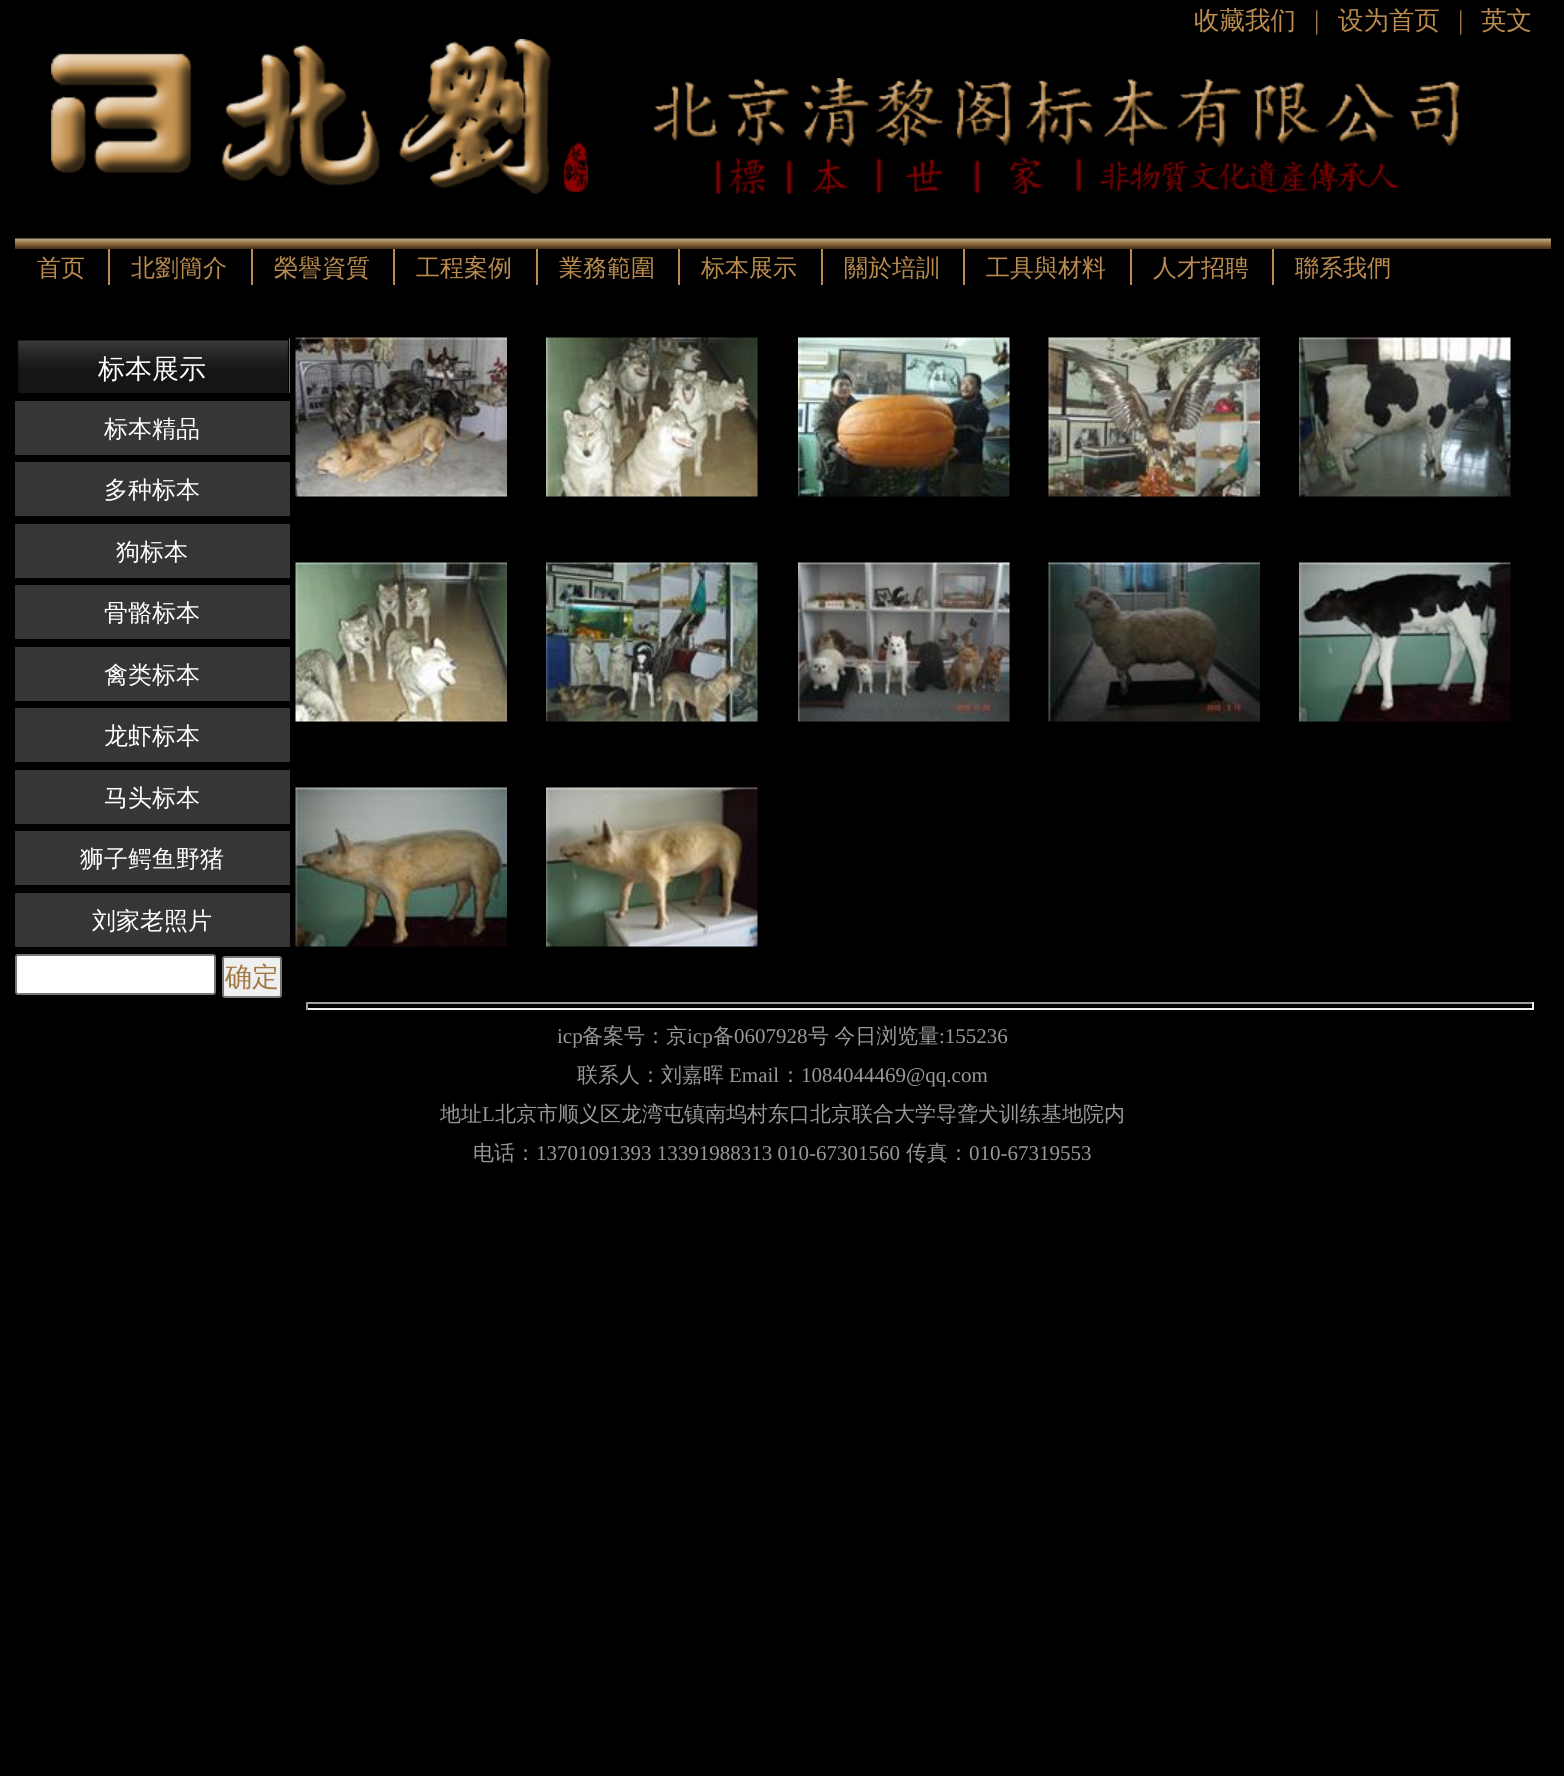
#include <cairo/cairo.h>
#include <math.h>
#include <stddef.h>


static void draw_spaced(cairo_t *cr, double x, double y, const char *s, double letter, double word) {
  cairo_move_to(cr, x, y);
  while (*s) {
    char ch[5] = {0};
    int n = 0;
    do ch[n++] = *s++; while ((*s & 0xC0) == 0x80);
    cairo_show_text(cr, ch);
    cairo_rel_move_to(cr, letter + word * (*ch == ' '), 0);
  }
}

static void rounded_rect(cairo_t *cr, double x, double y, double w, double h, double r) {
  cairo_new_sub_path(cr);
  cairo_arc(cr, x + w - r, y + h - r, r, 0, M_PI / 2);
  cairo_arc(cr, x + r, y + h - r, r, M_PI / 2, M_PI);
  cairo_arc(cr, x + r, y + r, r, M_PI, 1.5 * M_PI);
  cairo_arc(cr, x + w - r, y + r, r, 1.5 * M_PI, 2 * M_PI);
  cairo_close_path(cr);
}

static void draw_image(cairo_t *cr, const char *path, double x, double y, double w, double h) {
  cairo_surface_t *image = cairo_image_surface_create_from_png(path);
  cairo_save(cr);
  cairo_set_source_surface(cr, image, x, y);
  cairo_rectangle(cr, x, y, w, h);
  cairo_fill(cr);
  cairo_restore(cr);
  cairo_surface_destroy(image);
}

static void draw(cairo_t *cr) {
  cairo_set_source_rgb(cr, 0, 0, 0);
  cairo_paint(cr);
  draw_image(cr, "images/1.png", 51, 39, 537, 155);
  draw_image(cr, "images/2.png", 654, 78, 806, 116);
  draw_image(cr, "images/3.png", 15, 238, 1536, 11);
  cairo_set_source_rgb(cr, 187 / 255.0, 140 / 255.0, 77 / 255.0);
  cairo_rectangle(cr, 108, 249, 2, 36);
  cairo_fill(cr);
  cairo_rectangle(cr, 251, 249, 2, 36);
  cairo_fill(cr);
  cairo_rectangle(cr, 393, 249, 2, 36);
  cairo_fill(cr);
  cairo_rectangle(cr, 536, 249, 2, 36);
  cairo_fill(cr);
  cairo_rectangle(cr, 678, 249, 2, 36);
  cairo_fill(cr);
  cairo_rectangle(cr, 821, 249, 2, 36);
  cairo_fill(cr);
  cairo_rectangle(cr, 963, 249, 2, 36);
  cairo_fill(cr);
  cairo_rectangle(cr, 1130, 249, 2, 36);
  cairo_fill(cr);
  cairo_rectangle(cr, 1272, 249, 2, 36);
  cairo_fill(cr);
  cairo_set_source_rgb(cr, 204 / 255.0, 204 / 255.0, 204 / 255.0);
  cairo_rectangle(cr, 289, 338, 1, 55);
  cairo_fill(cr);
  draw_image(cr, "images/4.png", 15, 338, 275, 55);
  cairo_set_source_rgb(cr, 54 / 255.0, 54 / 255.0, 54 / 255.0);
  cairo_rectangle(cr, 15, 401, 275, 54);
  cairo_fill(cr);
  cairo_rectangle(cr, 15, 462, 275, 54);
  cairo_fill(cr);
  cairo_rectangle(cr, 15, 524, 275, 54);
  cairo_fill(cr);
  cairo_rectangle(cr, 15, 585, 275, 54);
  cairo_fill(cr);
  cairo_rectangle(cr, 15, 647, 275, 54);
  cairo_fill(cr);
  cairo_rectangle(cr, 15, 708, 275, 54);
  cairo_fill(cr);
  cairo_rectangle(cr, 15, 770, 275, 54);
  cairo_fill(cr);
  cairo_rectangle(cr, 15, 831, 275, 54);
  cairo_fill(cr);
  cairo_rectangle(cr, 15, 893, 275, 54);
  cairo_fill(cr);
  cairo_set_source_rgb(cr, 1, 1, 1);
  rounded_rect(cr, 16, 955, 199, 39, 2);
  cairo_fill_preserve(cr);
  cairo_set_source_rgb(cr, 118 / 255.0, 118 / 255.0, 118 / 255.0);
  cairo_stroke(cr);
  cairo_set_source_rgb(cr, 239 / 255.0, 239 / 255.0, 239 / 255.0);
  rounded_rect(cr, 223, 957, 58, 40, 2);
  cairo_fill_preserve(cr);
  cairo_set_source_rgb(cr, 118 / 255.0, 118 / 255.0, 118 / 255.0);
  cairo_stroke(cr);
  draw_image(cr, "images/5.png", 295, 337, 212, 160);
  draw_image(cr, "images/6.png", 546, 337, 212, 160);
  draw_image(cr, "images/7.png", 798, 337, 212, 160);
  draw_image(cr, "images/8.png", 1048, 337, 212, 160);
  draw_image(cr, "images/9.png", 1299, 337, 212, 160);
  draw_image(cr, "images/10.png", 295, 562, 212, 160);
  draw_image(cr, "images/11.png", 546, 562, 212, 160);
  draw_image(cr, "images/12.png", 798, 562, 212, 160);
  draw_image(cr, "images/13.png", 1048, 562, 212, 160);
  draw_image(cr, "images/14.png", 1299, 562, 212, 160);
  draw_image(cr, "images/15.png", 295, 787, 212, 160);
  draw_image(cr, "images/16.png", 546, 787, 212, 160);
  cairo_set_source_rgb(cr, 159 / 255.0, 159 / 255.0, 159 / 255.0);
  cairo_rectangle(cr, 306, 1002, 1227, 2);
  cairo_fill(cr);
  cairo_set_source_rgb(cr, 238 / 255.0, 238 / 255.0, 238 / 255.0);
  cairo_rectangle(cr, 1532, 1002, 2, 8);
  cairo_fill(cr);
  cairo_rectangle(cr, 306, 1008, 1227, 2);
  cairo_fill(cr);
  cairo_set_source_rgb(cr, 159 / 255.0, 159 / 255.0, 159 / 255.0);
  cairo_rectangle(cr, 306, 1002, 2, 8);
  cairo_fill(cr);
  cairo_select_font_face(cr, "WenQuanYi Zen Hei Medium", CAIRO_FONT_SLANT_NORMAL, CAIRO_FONT_WEIGHT_NORMAL);
  cairo_set_font_size(cr, 25.5);
  cairo_set_source_rgb(cr, 187 / 255.0, 140 / 255.0, 77 / 255.0);
  cairo_move_to(cr, 1194, 29);
  cairo_show_text(cr, "收藏我们");
  cairo_select_font_face(cr, "Liberation Serif", CAIRO_FONT_SLANT_NORMAL, CAIRO_FONT_WEIGHT_NORMAL);
  cairo_set_font_size(cr, 27);
  cairo_set_source_rgb(cr, 161 / 255.0, 120 / 255.0, 67 / 255.0);
  cairo_move_to(cr, 1314, 29);
  cairo_show_text(cr, "|");
  cairo_select_font_face(cr, "WenQuanYi Zen Hei Medium", CAIRO_FONT_SLANT_NORMAL, CAIRO_FONT_WEIGHT_NORMAL);
  cairo_set_font_size(cr, 25.5);
  cairo_set_source_rgb(cr, 187 / 255.0, 140 / 255.0, 77 / 255.0);
  cairo_move_to(cr, 1338, 29);
  cairo_show_text(cr, "设为首页");
  cairo_select_font_face(cr, "Liberation Serif", CAIRO_FONT_SLANT_NORMAL, CAIRO_FONT_WEIGHT_NORMAL);
  cairo_set_font_size(cr, 27);
  cairo_set_source_rgb(cr, 161 / 255.0, 120 / 255.0, 67 / 255.0);
  cairo_move_to(cr, 1458, 29);
  cairo_show_text(cr, "|");
  cairo_select_font_face(cr, "WenQuanYi Zen Hei Medium", CAIRO_FONT_SLANT_NORMAL, CAIRO_FONT_WEIGHT_NORMAL);
  cairo_set_font_size(cr, 25.5);
  cairo_set_source_rgb(cr, 187 / 255.0, 140 / 255.0, 77 / 255.0);
  cairo_move_to(cr, 1481, 29);
  cairo_show_text(cr, "英文");
  cairo_set_font_size(cr, 24);
  cairo_move_to(cr, 37, 276);
  cairo_show_text(cr, "首页");
  cairo_move_to(cr, 131, 276);
  cairo_show_text(cr, "北劉簡介");
  cairo_move_to(cr, 274, 276);
  cairo_show_text(cr, "榮譽資質");
  cairo_move_to(cr, 416, 276);
  cairo_show_text(cr, "工程案例");
  cairo_move_to(cr, 559, 276);
  cairo_show_text(cr, "業務範圍");
  cairo_move_to(cr, 701, 276);
  cairo_show_text(cr, "标本展示");
  cairo_move_to(cr, 844, 276);
  cairo_show_text(cr, "關於培訓");
  cairo_move_to(cr, 986, 276);
  cairo_show_text(cr, "工具與材料");
  cairo_move_to(cr, 1153, 276);
  cairo_show_text(cr, "人才招聘");
  cairo_move_to(cr, 1295, 276);
  cairo_show_text(cr, "聯系我們");
  cairo_set_font_size(cr, 27);
  cairo_set_source_rgb(cr, 1, 1, 1);
  cairo_move_to(cr, 98, 378);
  cairo_show_text(cr, "标本展示");
  cairo_set_font_size(cr, 24);
  cairo_move_to(cr, 104, 437);
  cairo_show_text(cr, "标本精品");
  cairo_move_to(cr, 104, 498);
  cairo_show_text(cr, "多种标本");
  cairo_move_to(cr, 116, 560);
  cairo_show_text(cr, "狗标本");
  cairo_move_to(cr, 104, 621);
  cairo_show_text(cr, "骨骼标本");
  cairo_move_to(cr, 104, 683);
  cairo_show_text(cr, "禽类标本");
  cairo_move_to(cr, 104, 744);
  cairo_show_text(cr, "龙虾标本");
  cairo_move_to(cr, 104, 806);
  cairo_show_text(cr, "马头标本");
  cairo_move_to(cr, 80, 867);
  cairo_show_text(cr, "狮子鳄鱼野猪");
  cairo_move_to(cr, 92, 929);
  cairo_show_text(cr, "刘家老照片");
  cairo_set_font_size(cr, 27);
  cairo_set_source_rgb(cr, 161 / 255.0, 120 / 255.0, 67 / 255.0);
  cairo_move_to(cr, 225, 986);
  cairo_show_text(cr, "确定");
  cairo_select_font_face(cr, "Liberation Serif", CAIRO_FONT_SLANT_NORMAL, CAIRO_FONT_WEIGHT_NORMAL);
  cairo_set_font_size(cr, 21);
  cairo_set_source_rgb(cr, 153 / 255.0, 153 / 255.0, 153 / 255.0);
  cairo_move_to(cr, 557, 1043);
  cairo_show_text(cr, "icp");
  cairo_select_font_face(cr, "WenQuanYi Zen Hei Medium", CAIRO_FONT_SLANT_NORMAL, CAIRO_FONT_WEIGHT_NORMAL);
  cairo_move_to(cr, 582, 1043);
  cairo_show_text(cr, "备案号：京");
  cairo_select_font_face(cr, "Liberation Serif", CAIRO_FONT_SLANT_NORMAL, CAIRO_FONT_WEIGHT_NORMAL);
  cairo_move_to(cr, 687, 1043);
  cairo_show_text(cr, "icp");
  cairo_select_font_face(cr, "WenQuanYi Zen Hei Medium", CAIRO_FONT_SLANT_NORMAL, CAIRO_FONT_WEIGHT_NORMAL);
  cairo_move_to(cr, 713, 1043);
  cairo_show_text(cr, "备");
  cairo_select_font_face(cr, "Liberation Serif", CAIRO_FONT_SLANT_NORMAL, CAIRO_FONT_WEIGHT_NORMAL);
  cairo_move_to(cr, 734, 1043);
  cairo_show_text(cr, "0607928");
  cairo_select_font_face(cr, "WenQuanYi Zen Hei Medium", CAIRO_FONT_SLANT_NORMAL, CAIRO_FONT_WEIGHT_NORMAL);
  draw_spaced(cr, 808, 1043, "号 今日浏览量", 0, -1);
  cairo_select_font_face(cr, "Liberation Serif", CAIRO_FONT_SLANT_NORMAL, CAIRO_FONT_WEIGHT_NORMAL);
  cairo_move_to(cr, 939, 1043);
  cairo_show_text(cr, ":155236");
  cairo_select_font_face(cr, "WenQuanYi Zen Hei Medium", CAIRO_FONT_SLANT_NORMAL, CAIRO_FONT_WEIGHT_NORMAL);
  cairo_move_to(cr, 577, 1082);
  cairo_show_text(cr, "联系人：刘嘉晖");
  cairo_select_font_face(cr, "Liberation Serif", CAIRO_FONT_SLANT_NORMAL, CAIRO_FONT_WEIGHT_NORMAL);
  cairo_move_to(cr, 729, 1082);
  cairo_show_text(cr, "Email");
  cairo_select_font_face(cr, "WenQuanYi Zen Hei Medium", CAIRO_FONT_SLANT_NORMAL, CAIRO_FONT_WEIGHT_NORMAL);
  cairo_move_to(cr, 780, 1082);
  cairo_show_text(cr, "：");
  cairo_select_font_face(cr, "Liberation Serif", CAIRO_FONT_SLANT_NORMAL, CAIRO_FONT_WEIGHT_NORMAL);
  cairo_move_to(cr, 801, 1082);
  cairo_show_text(cr, "1084044469@qq.com");
  cairo_select_font_face(cr, "WenQuanYi Zen Hei Medium", CAIRO_FONT_SLANT_NORMAL, CAIRO_FONT_WEIGHT_NORMAL);
  cairo_move_to(cr, 440, 1121);
  cairo_show_text(cr, "地址");
  cairo_select_font_face(cr, "Liberation Serif", CAIRO_FONT_SLANT_NORMAL, CAIRO_FONT_WEIGHT_NORMAL);
  cairo_move_to(cr, 482, 1121);
  cairo_show_text(cr, "L");
  cairo_select_font_face(cr, "WenQuanYi Zen Hei Medium", CAIRO_FONT_SLANT_NORMAL, CAIRO_FONT_WEIGHT_NORMAL);
  cairo_move_to(cr, 495, 1121);
  cairo_show_text(cr, "北京市顺义区龙湾屯镇南坞村东口北京联合大学导聋犬训练基地院内");
  cairo_move_to(cr, 473, 1160);
  cairo_show_text(cr, "电话：");
  cairo_select_font_face(cr, "Liberation Serif", CAIRO_FONT_SLANT_NORMAL, CAIRO_FONT_WEIGHT_NORMAL);
  cairo_move_to(cr, 536, 1160);
  cairo_show_text(cr, "13701091393 13391988313 010-67301560");
  cairo_select_font_face(cr, "WenQuanYi Zen Hei Medium", CAIRO_FONT_SLANT_NORMAL, CAIRO_FONT_WEIGHT_NORMAL);
  cairo_move_to(cr, 906, 1160);
  cairo_show_text(cr, "传真：");
  cairo_select_font_face(cr, "Liberation Serif", CAIRO_FONT_SLANT_NORMAL, CAIRO_FONT_WEIGHT_NORMAL);
  cairo_move_to(cr, 969, 1160);
  cairo_show_text(cr, "010-67319553");
}

int main(void) {
  cairo_surface_t *surface = cairo_image_surface_create(CAIRO_FORMAT_RGB24, 1564, 1776);
  cairo_t *cr = cairo_create(surface);
  cairo_font_options_t *options = cairo_font_options_create();
  cairo_font_options_set_hint_metrics(options, CAIRO_HINT_METRICS_OFF);
  cairo_font_options_set_hint_style(options, CAIRO_HINT_STYLE_NONE);
  cairo_set_font_options(cr, options);
  cairo_set_miter_limit(cr, 4);
  draw(cr);
  cairo_surface_write_to_png(surface, "out.png");
  cairo_font_options_destroy(options);
  cairo_destroy(cr);
  cairo_surface_destroy(surface);
  return 0;
}
